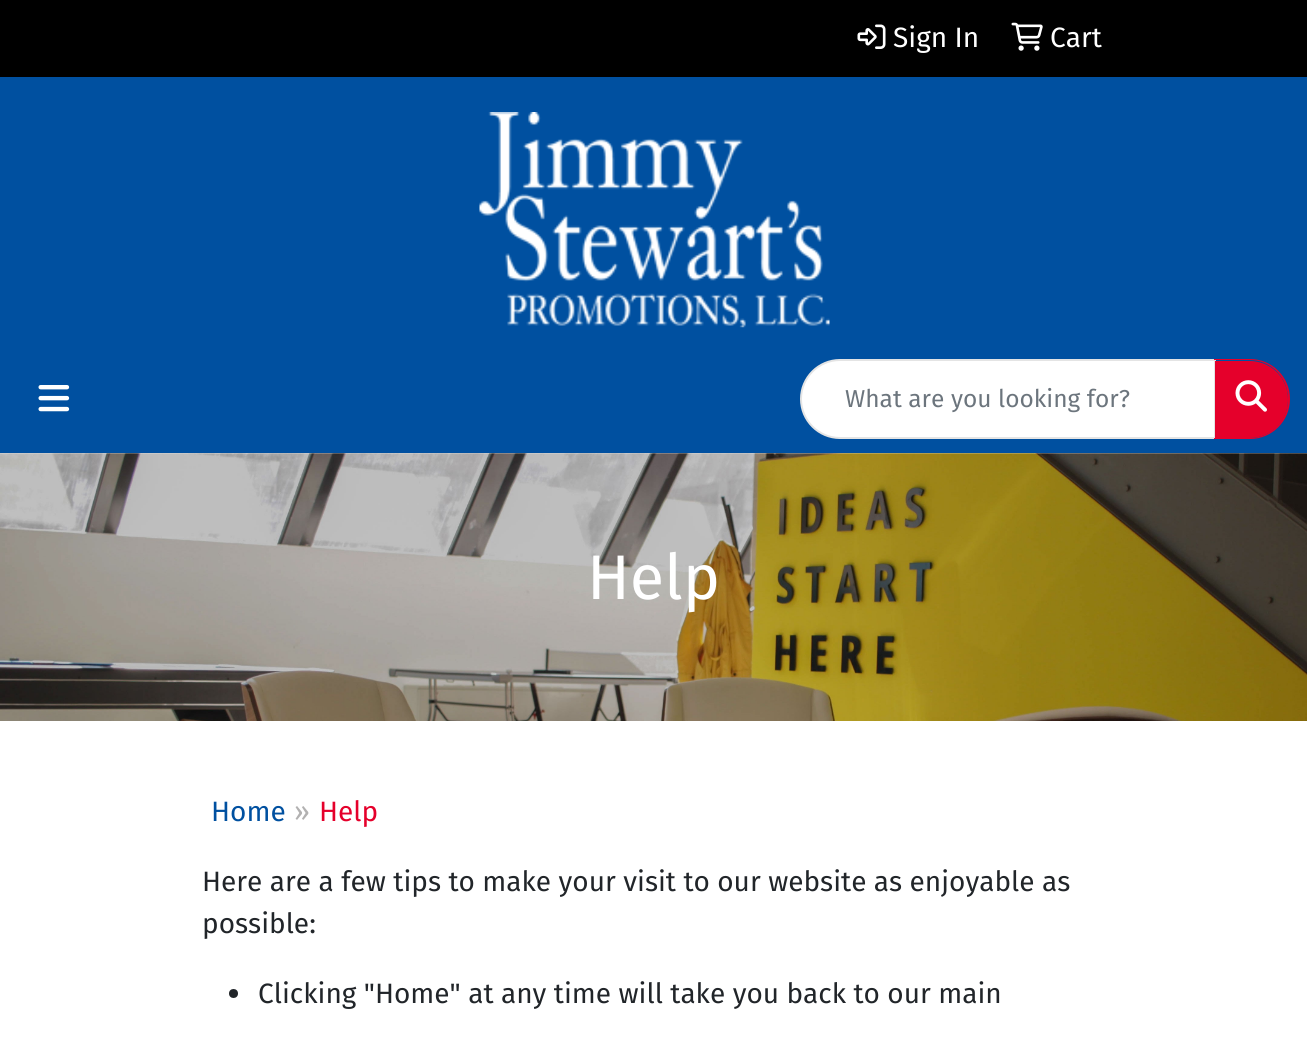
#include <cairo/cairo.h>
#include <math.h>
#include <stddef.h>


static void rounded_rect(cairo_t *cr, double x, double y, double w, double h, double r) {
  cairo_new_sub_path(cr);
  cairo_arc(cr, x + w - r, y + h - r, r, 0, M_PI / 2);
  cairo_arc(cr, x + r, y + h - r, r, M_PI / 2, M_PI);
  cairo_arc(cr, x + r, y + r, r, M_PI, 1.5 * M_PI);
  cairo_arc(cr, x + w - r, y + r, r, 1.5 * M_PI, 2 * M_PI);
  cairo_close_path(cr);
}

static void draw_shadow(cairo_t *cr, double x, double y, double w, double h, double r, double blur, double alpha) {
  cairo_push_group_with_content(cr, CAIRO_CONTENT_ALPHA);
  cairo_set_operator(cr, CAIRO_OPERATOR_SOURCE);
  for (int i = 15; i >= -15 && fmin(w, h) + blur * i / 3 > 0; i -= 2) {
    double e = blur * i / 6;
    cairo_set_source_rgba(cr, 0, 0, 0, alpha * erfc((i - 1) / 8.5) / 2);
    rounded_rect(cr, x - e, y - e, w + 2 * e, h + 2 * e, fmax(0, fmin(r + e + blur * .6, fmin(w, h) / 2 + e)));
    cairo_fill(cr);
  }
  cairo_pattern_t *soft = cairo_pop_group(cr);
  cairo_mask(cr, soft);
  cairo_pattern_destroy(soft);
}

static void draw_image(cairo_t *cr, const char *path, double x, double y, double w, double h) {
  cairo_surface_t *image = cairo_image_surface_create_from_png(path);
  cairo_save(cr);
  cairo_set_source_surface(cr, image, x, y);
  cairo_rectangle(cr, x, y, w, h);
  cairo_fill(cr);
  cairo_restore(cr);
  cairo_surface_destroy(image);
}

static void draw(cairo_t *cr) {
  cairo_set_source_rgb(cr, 1, 1, 1);
  cairo_paint(cr);
  cairo_set_source_rgb(cr, 0, 0, 0);
  cairo_rectangle(cr, 0, 0, 1307, 77);
  cairo_fill(cr);
  draw_image(cr, "images/1.png", 857, 24, 29, 25);
  draw_image(cr, "images/2.png", 1011, 22, 32, 29);
  cairo_set_source_rgb(cr, 0, 80 / 255.0, 160 / 255.0);
  cairo_rectangle(cr, 0, 77, 1307, 376);
  cairo_fill(cr);
  draw_image(cr, "images/3.png", 479, 112, 351, 216);
  cairo_save(cr);
  cairo_rectangle(cr, 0, 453, 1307, 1);
  cairo_clip(cr);
  cairo_set_source_rgb(cr, 0, 0, 0);
  draw_shadow(cr, 0, 348, 1307, 109, 0, 3.5, 0.07);
  cairo_restore(cr);
  draw_image(cr, "images/4.png", 38, 385, 32, 27);
  cairo_set_source_rgb(cr, 1, 1, 1);
  cairo_new_path(cr);
  cairo_move_to(cr, 840, 360);
  cairo_line_to(cr, 1215, 360);
  cairo_line_to(cr, 1215, 438);
  cairo_line_to(cr, 840, 438);
  cairo_curve_to(cr, 818.5, 438, 801, 420.5, 801, 399);
  cairo_curve_to(cr, 801, 377.5, 818.5, 360, 840, 360);
  cairo_close_path(cr);
  cairo_fill_preserve(cr);
  cairo_set_source_rgb(cr, 228 / 255.0, 228 / 255.0, 228 / 255.0);
  cairo_stroke(cr);
  cairo_set_source_rgb(cr, 229 / 255.0, 0, 43 / 255.0);
  cairo_new_path(cr);
  cairo_move_to(cr, 1215, 361);
  cairo_line_to(cr, 1249.5, 361);
  cairo_curve_to(cr, 1271, 361, 1288, 378, 1288, 399.5);
  cairo_curve_to(cr, 1288, 421, 1271, 438, 1249.5, 438);
  cairo_line_to(cr, 1215, 438);
  cairo_close_path(cr);
  cairo_fill(cr);
  cairo_set_fill_rule(cr, CAIRO_FILL_RULE_EVEN_ODD);
  cairo_new_path(cr);
  cairo_move_to(cr, 1214, 359);
  cairo_line_to(cr, 1250, 359);
  cairo_curve_to(cr, 1272, 359, 1290, 377, 1290, 399);
  cairo_curve_to(cr, 1290, 421, 1272, 439, 1250, 439);
  cairo_line_to(cr, 1214, 439);
  cairo_close_path(cr);
  cairo_move_to(cr, 1214, 360);
  cairo_line_to(cr, 1250, 360);
  cairo_curve_to(cr, 1271, 360, 1288, 378, 1288, 399);
  cairo_curve_to(cr, 1288, 420, 1271, 438, 1250, 438);
  cairo_line_to(cr, 1214, 438);
  cairo_close_path(cr);
  cairo_fill(cr);
  draw_image(cr, "images/5.png", 1235, 380, 32, 32);
  draw_image(cr, "images/6.png", 0, 453, 1307, 268);
  cairo_set_source_rgb(cr, 33 / 255.0, 37 / 255.0, 41 / 255.0);
  cairo_arc(cr, 233.5, 993.5, 4.5, 0, 2 * M_PI);
  cairo_fill(cr);
  cairo_select_font_face(cr, "Fira Sans", CAIRO_FONT_SLANT_NORMAL, CAIRO_FONT_WEIGHT_NORMAL);
  cairo_set_font_size(cr, 28);
  cairo_set_source_rgb(cr, 1, 1, 1);
  cairo_move_to(cr, 893, 47);
  cairo_show_text(cr, "Sign In");
  cairo_move_to(cr, 1050, 47);
  cairo_show_text(cr, "Cart");
  cairo_set_font_size(cr, 24.5);
  cairo_set_source_rgb(cr, 108 / 255.0, 117 / 255.0, 125 / 255.0);
  cairo_move_to(cr, 845, 407);
  cairo_show_text(cr, "What are you looking for?");
  cairo_set_font_size(cr, 63);
  cairo_set_source_rgb(cr, 1, 1, 1);
  cairo_move_to(cr, 587, 599);
  cairo_show_text(cr, "Help");
  cairo_set_font_size(cr, 28);
  cairo_set_source_rgb(cr, 0, 80 / 255.0, 160 / 255.0);
  cairo_move_to(cr, 211, 821);
  cairo_show_text(cr, "Home");
  cairo_set_source_rgb(cr, 178 / 255.0, 177 / 255.0, 177 / 255.0);
  cairo_move_to(cr, 294, 821);
  cairo_show_text(cr, "»");
  cairo_set_source_rgb(cr, 229 / 255.0, 0, 43 / 255.0);
  cairo_move_to(cr, 319, 821);
  cairo_show_text(cr, "Help");
  cairo_set_source_rgb(cr, 33 / 255.0, 37 / 255.0, 41 / 255.0);
  cairo_move_to(cr, 202, 891);
  cairo_show_text(cr, "Here are a few tips to make your visit to our website as enjoyable as");
  cairo_move_to(cr, 202, 933);
  cairo_show_text(cr, "possible:");
  cairo_move_to(cr, 258, 1003);
  cairo_show_text(cr, "Clicking \"Home\" at any time will take you back to our main");
}

int main(void) {
  cairo_surface_t *surface = cairo_image_surface_create(CAIRO_FORMAT_RGB24, 1307, 1039);
  cairo_t *cr = cairo_create(surface);
  cairo_font_options_t *options = cairo_font_options_create();
  cairo_font_options_set_hint_metrics(options, CAIRO_HINT_METRICS_OFF);
  cairo_font_options_set_hint_style(options, CAIRO_HINT_STYLE_NONE);
  cairo_set_font_options(cr, options);
  cairo_set_miter_limit(cr, 4);
  draw(cr);
  cairo_surface_write_to_png(surface, "out.png");
  cairo_font_options_destroy(options);
  cairo_destroy(cr);
  cairo_surface_destroy(surface);
  return 0;
}
